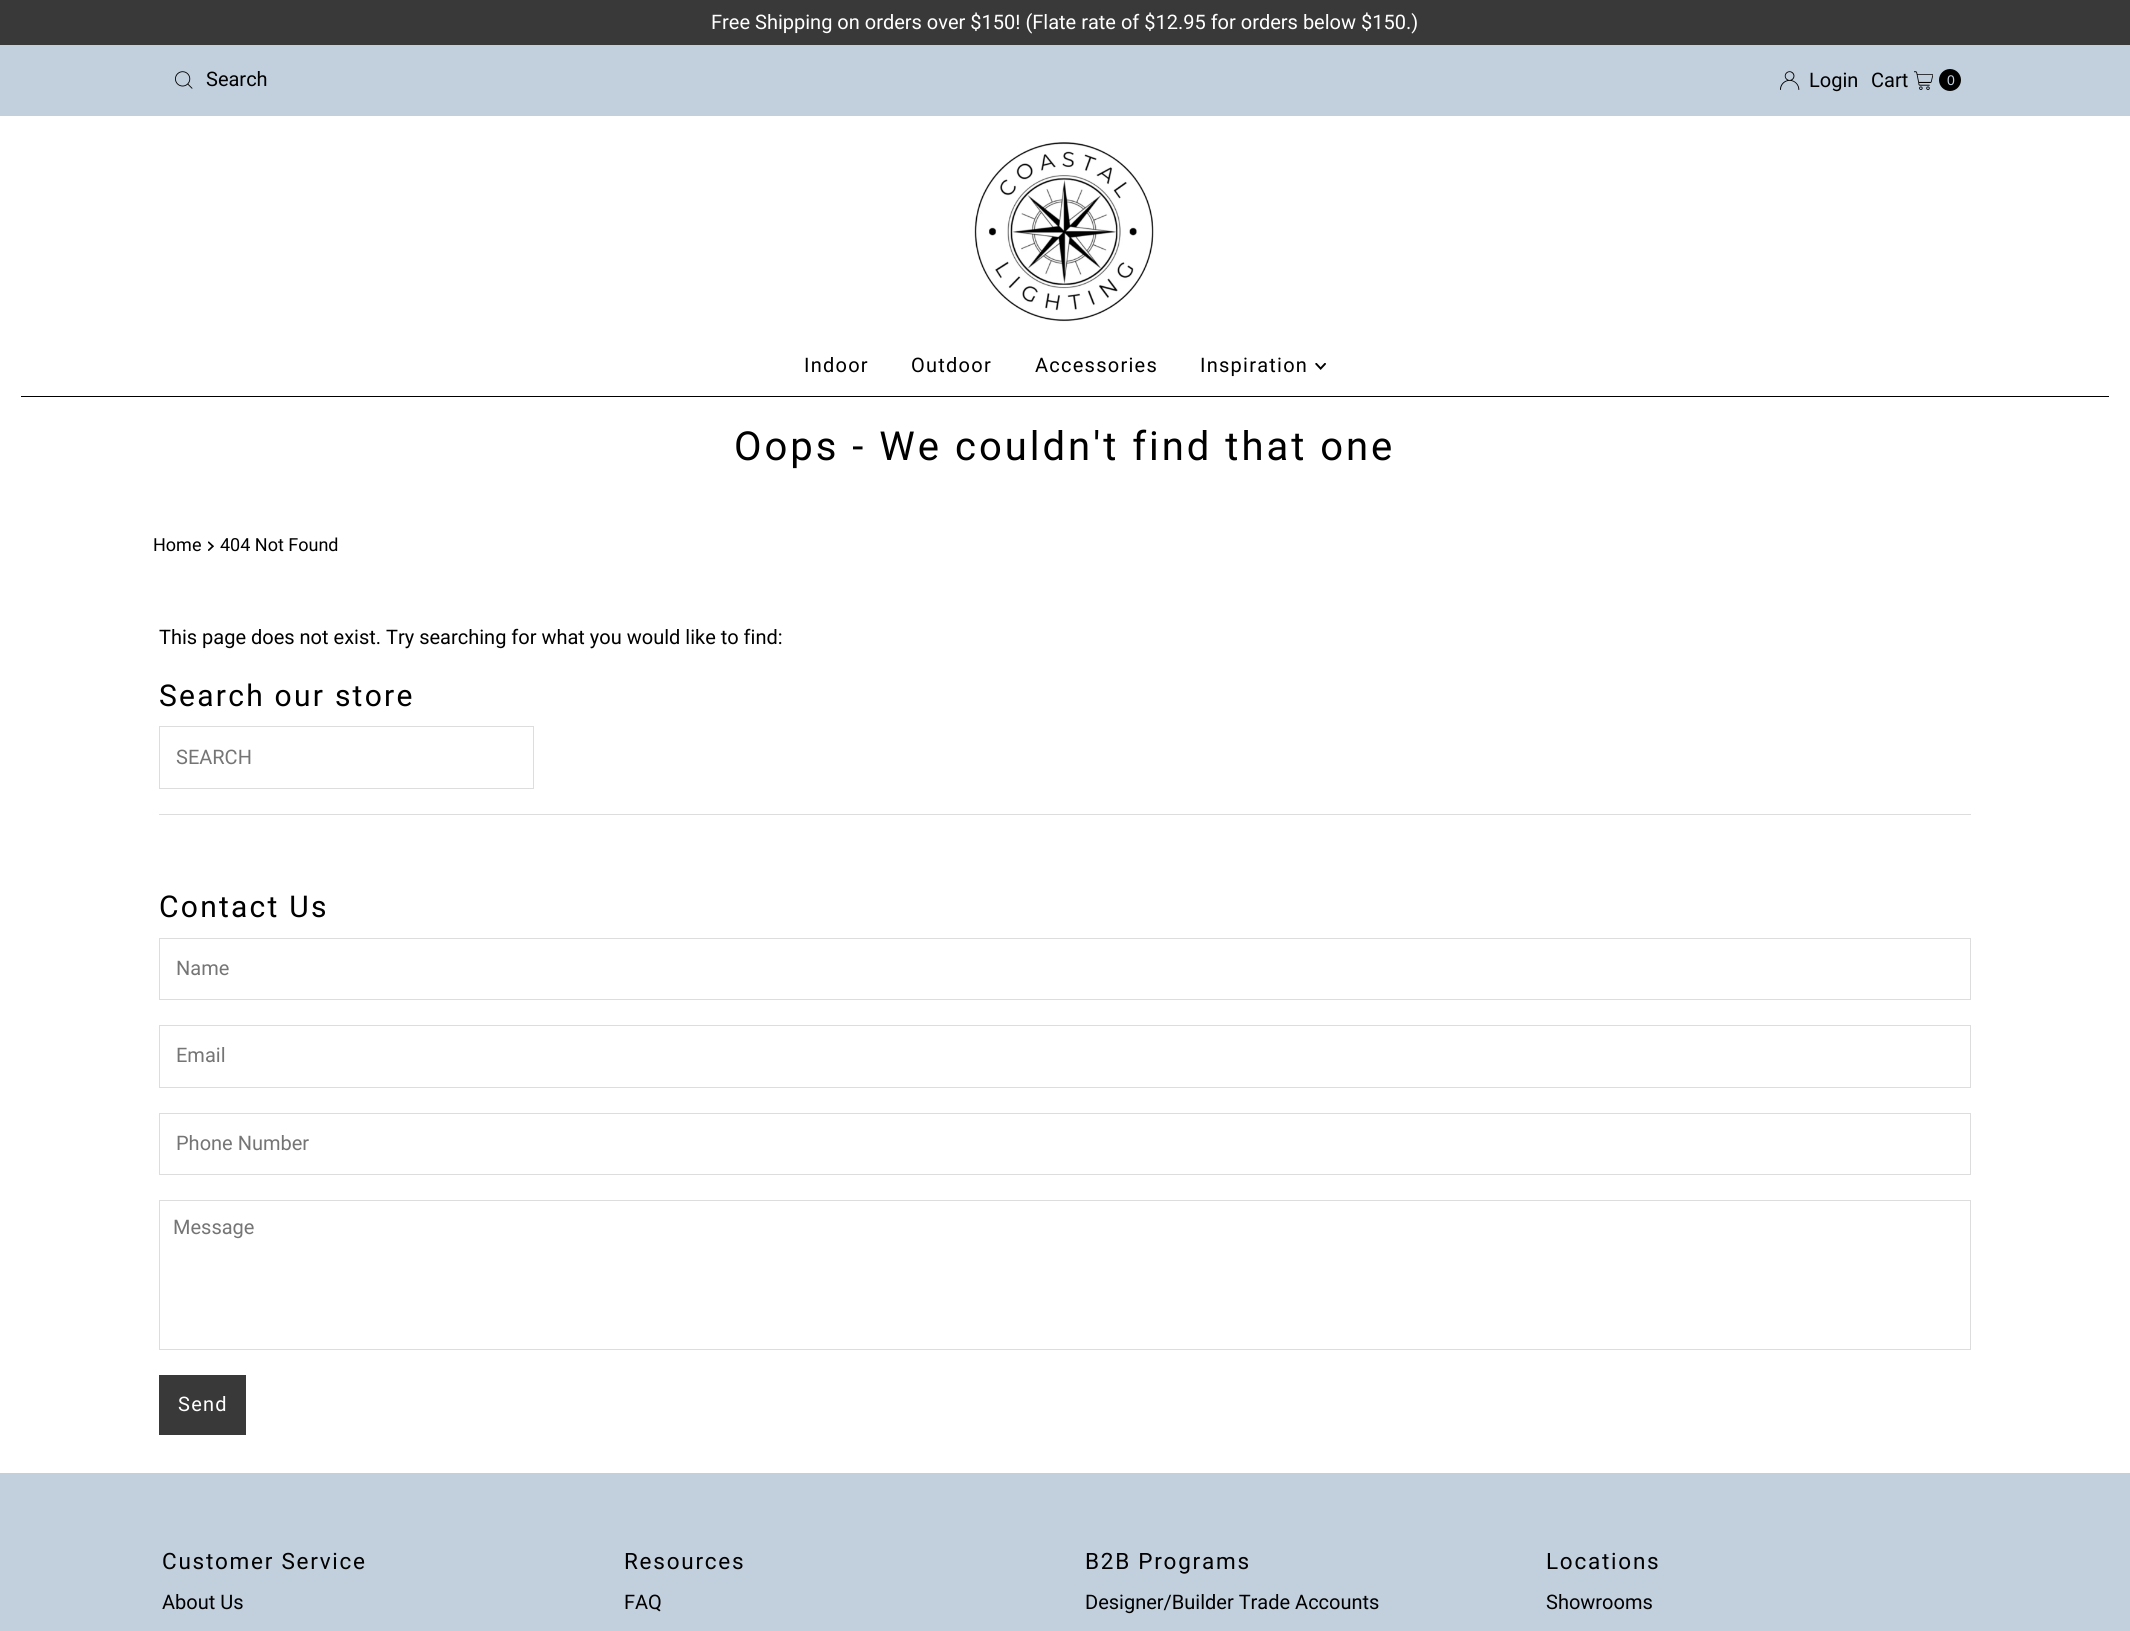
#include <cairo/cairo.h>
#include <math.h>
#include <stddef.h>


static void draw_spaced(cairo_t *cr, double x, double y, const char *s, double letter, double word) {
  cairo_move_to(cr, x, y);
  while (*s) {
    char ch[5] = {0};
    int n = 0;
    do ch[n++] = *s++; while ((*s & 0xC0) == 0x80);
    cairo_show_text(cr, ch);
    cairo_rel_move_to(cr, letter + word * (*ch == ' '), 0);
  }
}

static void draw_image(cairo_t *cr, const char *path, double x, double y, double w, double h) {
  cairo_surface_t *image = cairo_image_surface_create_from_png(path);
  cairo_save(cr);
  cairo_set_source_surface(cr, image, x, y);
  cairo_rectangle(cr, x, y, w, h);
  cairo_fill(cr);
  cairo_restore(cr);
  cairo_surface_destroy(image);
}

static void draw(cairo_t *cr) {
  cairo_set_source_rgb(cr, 1, 1, 1);
  cairo_paint(cr);
  cairo_set_source_rgb(cr, 57 / 255.0, 57 / 255.0, 58 / 255.0);
  cairo_rectangle(cr, 0, 0, 2130, 45);
  cairo_fill(cr);
  cairo_set_source_rgb(cr, 194 / 255.0, 208 / 255.0, 222 / 255.0);
  cairo_rectangle(cr, 0, 45, 2130, 71);
  cairo_fill(cr);
  draw_image(cr, "images/1.png", 175, 71, 18, 18);
  draw_image(cr, "images/2.png", 1780, 71, 20, 19);
  draw_image(cr, "images/3.png", 1914, 71, 19, 19);
  cairo_set_source_rgb(cr, 0, 0, 0);
  cairo_arc(cr, 1950, 80, 11, 0, 2 * M_PI);
  cairo_fill(cr);
  draw_image(cr, "images/4.png", 974, 142, 180, 180);
  draw_image(cr, "images/5.png", 1315, 363, 11, 7);
  cairo_rectangle(cr, 21, 396, 2088, 1);
  cairo_fill(cr);
  draw_image(cr, "images/6.png", 208, 541, 6, 10);
  cairo_set_source_rgb(cr, 221 / 255.0, 221 / 255.0, 221 / 255.0);
  cairo_rectangle(cr, 159, 814, 1812, 1);
  cairo_fill(cr);
  cairo_rectangle(cr, 159.5, 726.5, 374, 62);
  cairo_set_line_width(cr, 1);
  cairo_stroke(cr);
  cairo_rectangle(cr, 159.5, 938.5, 1811, 61);
  cairo_stroke(cr);
  cairo_rectangle(cr, 159.5, 1025.5, 1811, 62);
  cairo_stroke(cr);
  cairo_rectangle(cr, 159.5, 1113.5, 1811, 61);
  cairo_stroke(cr);
  cairo_rectangle(cr, 159.5, 1200.5, 1811, 149);
  cairo_stroke(cr);
  cairo_set_source_rgb(cr, 57 / 255.0, 57 / 255.0, 58 / 255.0);
  cairo_rectangle(cr, 159, 1375, 87, 60);
  cairo_fill(cr);
  cairo_set_source_rgb(cr, 194 / 255.0, 208 / 255.0, 222 / 255.0);
  cairo_rectangle(cr, 0, 1473, 2130, 158);
  cairo_fill(cr);
  cairo_select_font_face(cr, "Roboto", CAIRO_FONT_SLANT_NORMAL, CAIRO_FONT_WEIGHT_NORMAL);
  cairo_set_font_size(cr, 20);
  cairo_set_source_rgb(cr, 1, 1, 1);
  cairo_move_to(cr, 711, 29);
  cairo_show_text(cr, "Free Shipping on orders over $150! (Flate rate of $12.95 for orders below $150.)");
  cairo_set_source_rgb(cr, 0, 0, 0);
  cairo_move_to(cr, 206, 86);
  cairo_show_text(cr, "Search");
  cairo_move_to(cr, 1809, 87);
  cairo_show_text(cr, "Login");
  cairo_move_to(cr, 1871, 87);
  cairo_show_text(cr, "Cart");
  cairo_select_font_face(cr, "Liberation Sans", CAIRO_FONT_SLANT_NORMAL, CAIRO_FONT_WEIGHT_NORMAL);
  cairo_set_font_size(cr, 14);
  cairo_set_source_rgb(cr, 194 / 255.0, 208 / 255.0, 222 / 255.0);
  cairo_move_to(cr, 1947, 85);
  cairo_show_text(cr, "0");
  cairo_select_font_face(cr, "Roboto", CAIRO_FONT_SLANT_NORMAL, CAIRO_FONT_WEIGHT_NORMAL);
  cairo_set_font_size(cr, 20);
  cairo_set_source_rgb(cr, 0, 0, 0);
  draw_spaced(cr, 804, 372, "Indoor", 1.25, 0);
  draw_spaced(cr, 911, 372, "Outdoor", 1.25, 0);
  draw_spaced(cr, 1035, 372, "Accessories", 1.25, 0);
  draw_spaced(cr, 1200, 372, "Inspiration", 1.25, 0);
  cairo_set_font_size(cr, 40);
  draw_spaced(cr, 734, 460, "Oops - We couldn't find that one", 3, 0);
  cairo_set_font_size(cr, 18);
  cairo_move_to(cr, 153, 551);
  cairo_show_text(cr, "Home");
  cairo_move_to(cr, 220, 551);
  cairo_show_text(cr, "404 Not Found");
  cairo_set_font_size(cr, 20);
  cairo_move_to(cr, 159, 644);
  cairo_show_text(cr, "This page does not exist. Try searching for what you would like to find:");
  cairo_set_font_size(cr, 30);
  draw_spaced(cr, 159, 706, "Search our store", 2.25, 0);
  cairo_set_font_size(cr, 20);
  cairo_set_source_rgb(cr, 117 / 255.0, 117 / 255.0, 117 / 255.0);
  cairo_move_to(cr, 176, 764);
  cairo_show_text(cr, "SEARCH");
  cairo_set_font_size(cr, 30);
  cairo_set_source_rgb(cr, 0, 0, 0);
  draw_spaced(cr, 159, 917, "Contact Us", 2.25, 0);
  cairo_set_font_size(cr, 20);
  cairo_set_source_rgb(cr, 117 / 255.0, 117 / 255.0, 117 / 255.0);
  cairo_move_to(cr, 176, 975);
  cairo_show_text(cr, "Name");
  cairo_move_to(cr, 176, 1062);
  cairo_show_text(cr, "Email");
  cairo_move_to(cr, 176, 1150);
  cairo_show_text(cr, "Phone Number");
  cairo_move_to(cr, 173, 1234);
  cairo_show_text(cr, "Message");
  cairo_set_source_rgb(cr, 1, 1, 1);
  draw_spaced(cr, 178, 1411, "Send", 1.25, 0);
  cairo_set_font_size(cr, 22.5);
  cairo_set_source_rgb(cr, 0, 0, 0);
  draw_spaced(cr, 162, 1569, "Customer Service", 1.75, 0);
  cairo_set_font_size(cr, 20);
  cairo_move_to(cr, 162, 1609);
  cairo_show_text(cr, "About Us");
  cairo_set_font_size(cr, 22.5);
  draw_spaced(cr, 624, 1569, "Resources", 1.75, 0);
  cairo_set_font_size(cr, 20);
  cairo_move_to(cr, 624, 1609);
  cairo_show_text(cr, "FAQ");
  cairo_set_font_size(cr, 22.5);
  draw_spaced(cr, 1085, 1569, "B2B Programs", 1.75, 0);
  cairo_set_font_size(cr, 20);
  cairo_move_to(cr, 1085, 1609);
  cairo_show_text(cr, "Designer/Builder Trade Accounts");
  cairo_set_font_size(cr, 22.5);
  draw_spaced(cr, 1546, 1569, "Locations", 1.75, 0);
  cairo_set_font_size(cr, 20);
  cairo_move_to(cr, 1546, 1609);
  cairo_show_text(cr, "Showrooms");
}

int main(void) {
  cairo_surface_t *surface = cairo_image_surface_create(CAIRO_FORMAT_RGB24, 2130, 1631);
  cairo_t *cr = cairo_create(surface);
  cairo_font_options_t *options = cairo_font_options_create();
  cairo_font_options_set_hint_metrics(options, CAIRO_HINT_METRICS_OFF);
  cairo_font_options_set_hint_style(options, CAIRO_HINT_STYLE_NONE);
  cairo_set_font_options(cr, options);
  cairo_set_miter_limit(cr, 4);
  draw(cr);
  cairo_surface_write_to_png(surface, "out.png");
  cairo_font_options_destroy(options);
  cairo_destroy(cr);
  cairo_surface_destroy(surface);
  return 0;
}
